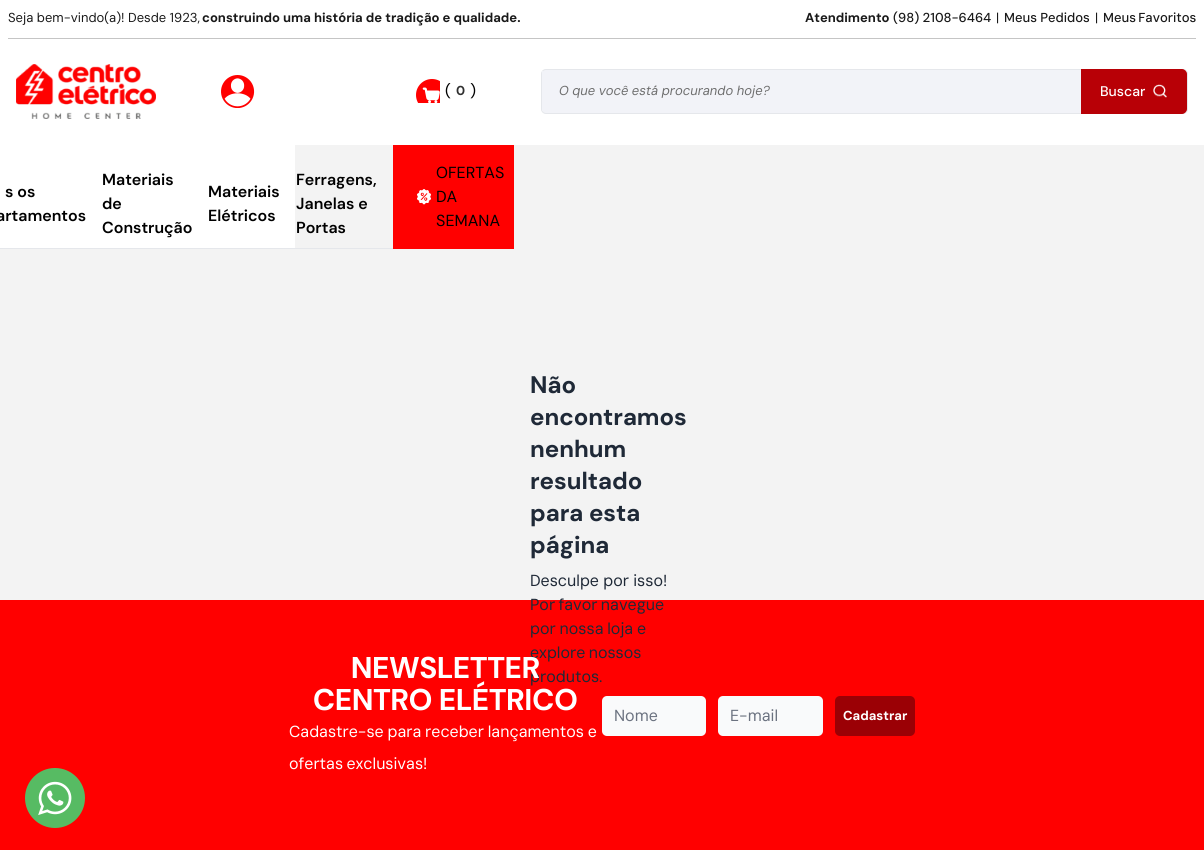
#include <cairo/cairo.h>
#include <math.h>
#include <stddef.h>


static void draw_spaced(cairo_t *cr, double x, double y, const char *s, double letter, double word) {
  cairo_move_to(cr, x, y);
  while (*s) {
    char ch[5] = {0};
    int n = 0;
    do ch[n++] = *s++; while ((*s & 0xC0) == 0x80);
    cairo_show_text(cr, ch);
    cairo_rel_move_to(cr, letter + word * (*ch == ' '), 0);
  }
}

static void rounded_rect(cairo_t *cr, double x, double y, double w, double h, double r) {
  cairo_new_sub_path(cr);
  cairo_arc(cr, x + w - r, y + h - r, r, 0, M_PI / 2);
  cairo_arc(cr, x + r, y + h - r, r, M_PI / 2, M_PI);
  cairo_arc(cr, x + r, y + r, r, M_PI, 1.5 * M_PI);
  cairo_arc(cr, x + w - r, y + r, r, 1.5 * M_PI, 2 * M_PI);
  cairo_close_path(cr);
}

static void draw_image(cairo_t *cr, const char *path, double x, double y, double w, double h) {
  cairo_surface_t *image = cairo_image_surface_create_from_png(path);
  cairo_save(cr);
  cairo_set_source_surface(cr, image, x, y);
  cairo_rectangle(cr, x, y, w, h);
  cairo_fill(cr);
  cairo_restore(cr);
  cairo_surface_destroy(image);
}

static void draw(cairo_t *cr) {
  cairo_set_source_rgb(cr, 243 / 255.0, 243 / 255.0, 243 / 255.0);
  cairo_paint(cr);
  cairo_set_source_rgb(cr, 1, 1, 1);
  cairo_rectangle(cr, 0, 0, 1204, 145);
  cairo_fill(cr);
  cairo_set_source_rgb(cr, 197 / 255.0, 197 / 255.0, 197 / 255.0);
  cairo_rectangle(cr, 8, 38, 1188, 1);
  cairo_fill(cr);
  draw_image(cr, "images/1.png", 16, 64, 140, 55);
  draw_image(cr, "images/2.png", 221, 75, 34, 33);
  draw_image(cr, "images/3.png", 416, 79, 24, 24);
  cairo_set_source_rgb(cr, 242 / 255.0, 243 / 255.0, 248 / 255.0);
  rounded_rect(cr, 541.5, 69.5, 646, 44, 4.5);
  cairo_fill_preserve(cr);
  cairo_set_source_rgb(cr, 229 / 255.0, 231 / 255.0, 235 / 255.0);
  cairo_set_line_width(cr, 1);
  cairo_stroke(cr);
  cairo_set_source_rgb(cr, 242 / 255.0, 243 / 255.0, 248 / 255.0);
  cairo_rectangle(cr, 542, 71, 1, 40);
  cairo_fill(cr);
  cairo_set_source_rgb(cr, 184 / 255.0, 0, 6 / 255.0);
  cairo_new_path(cr);
  cairo_move_to(cr, 1082, 70);
  cairo_line_to(cr, 1182, 70);
  cairo_curve_to(cr, 1184, 70, 1186, 72, 1186, 74);
  cairo_line_to(cr, 1186, 109);
  cairo_curve_to(cr, 1186, 111, 1184, 113, 1182, 113);
  cairo_line_to(cr, 1082, 113);
  cairo_close_path(cr);
  cairo_fill_preserve(cr);
  cairo_set_line_width(cr, 2);
  cairo_stroke(cr);
  draw_image(cr, "images/4.png", 1153, 84, 14, 14);
  cairo_set_source_rgb(cr, 1, 1, 1);
  cairo_rectangle(cr, 0, 145, 295, 103);
  cairo_fill(cr);
  cairo_set_source_rgb(cr, 229 / 255.0, 231 / 255.0, 235 / 255.0);
  cairo_rectangle(cr, 0, 248, 393, 1);
  cairo_fill(cr);
  cairo_set_source_rgb(cr, 1, 0, 0);
  cairo_rectangle(cr, 393, 145, 121, 104);
  cairo_fill(cr);
  draw_image(cr, "images/5.png", 417, 189, 14, 16);
  cairo_rectangle(cr, 0, 600, 1204, 250);
  cairo_fill(cr);
  cairo_set_source_rgb(cr, 249 / 255.0, 250 / 255.0, 251 / 255.0);
  rounded_rect(cr, 602, 696, 104, 40, 5);
  cairo_fill(cr);
  rounded_rect(cr, 718, 696, 105, 40, 5);
  cairo_fill(cr);
  cairo_set_source_rgb(cr, 155 / 255.0, 0, 5 / 255.0);
  rounded_rect(cr, 835, 696, 80, 40, 5);
  cairo_fill(cr);
  draw_image(cr, "images/6.png", 25, 768, 60, 60);
  cairo_set_source_rgb(cr, 1, 1, 1);
  cairo_rectangle(cr, 0, 850, 1204, 18);
  cairo_fill(cr);
  cairo_select_font_face(cr, "DM Sans", CAIRO_FONT_SLANT_NORMAL, CAIRO_FONT_WEIGHT_NORMAL);
  cairo_set_font_size(cr, 13);
  cairo_set_source_rgb(cr, 25 / 255.0, 25 / 255.0, 25 / 255.0);
  cairo_move_to(cr, 8, 22);
  cairo_show_text(cr, "Seja bem-vindo(a)! Desde 1923,");
  cairo_select_font_face(cr, "DM Sans", CAIRO_FONT_SLANT_NORMAL, CAIRO_FONT_WEIGHT_BOLD);
  cairo_move_to(cr, 202, 22);
  cairo_show_text(cr, "construindo uma história de tradição e qualidade.");
  cairo_move_to(cr, 805, 22);
  cairo_show_text(cr, "Atendimento");
  cairo_select_font_face(cr, "DM Sans Medium", CAIRO_FONT_SLANT_NORMAL, CAIRO_FONT_WEIGHT_NORMAL);
  cairo_move_to(cr, 893, 22);
  cairo_show_text(cr, "(98) 2108-6464");
  cairo_select_font_face(cr, "DM Sans", CAIRO_FONT_SLANT_NORMAL, CAIRO_FONT_WEIGHT_NORMAL);
  cairo_move_to(cr, 996, 22);
  cairo_show_text(cr, "|");
  cairo_select_font_face(cr, "DM Sans Medium", CAIRO_FONT_SLANT_NORMAL, CAIRO_FONT_WEIGHT_NORMAL);
  cairo_move_to(cr, 1004, 22);
  cairo_show_text(cr, "Meus Pedidos");
  cairo_select_font_face(cr, "DM Sans", CAIRO_FONT_SLANT_NORMAL, CAIRO_FONT_WEIGHT_NORMAL);
  cairo_move_to(cr, 1095, 22);
  cairo_show_text(cr, "|");
  cairo_select_font_face(cr, "DM Sans Medium", CAIRO_FONT_SLANT_NORMAL, CAIRO_FONT_WEIGHT_NORMAL);
  draw_spaced(cr, 1103, 22, "Meus Favoritos", 0, -1);
  cairo_select_font_face(cr, "DM Sans", CAIRO_FONT_SLANT_NORMAL, CAIRO_FONT_WEIGHT_NORMAL);
  cairo_set_font_size(cr, 16);
  cairo_set_source_rgb(cr, 0, 0, 0);
  cairo_move_to(cr, 445, 96);
  cairo_show_text(cr, "(");
  cairo_select_font_face(cr, "DM Sans", CAIRO_FONT_SLANT_NORMAL, CAIRO_FONT_WEIGHT_BOLD);
  cairo_set_font_size(cr, 13);
  cairo_set_source_rgb(cr, 48 / 255.0, 48 / 255.0, 48 / 255.0);
  cairo_move_to(cr, 456, 95);
  cairo_show_text(cr, "0");
  cairo_select_font_face(cr, "DM Sans", CAIRO_FONT_SLANT_NORMAL, CAIRO_FONT_WEIGHT_NORMAL);
  cairo_set_font_size(cr, 16);
  cairo_set_source_rgb(cr, 0, 0, 0);
  cairo_move_to(cr, 470, 96);
  cairo_show_text(cr, ")");
  cairo_select_font_face(cr, "DM Sans", CAIRO_FONT_SLANT_ITALIC, CAIRO_FONT_WEIGHT_NORMAL);
  cairo_set_font_size(cr, 13);
  cairo_set_source_rgb(cr, 110 / 255.0, 110 / 255.0, 110 / 255.0);
  cairo_move_to(cr, 559, 95);
  cairo_show_text(cr, "O que você está procurando hoje?");
  cairo_select_font_face(cr, "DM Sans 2 Medium", CAIRO_FONT_SLANT_NORMAL, CAIRO_FONT_WEIGHT_NORMAL);
  cairo_set_font_size(cr, 14);
  cairo_set_source_rgb(cr, 1, 1, 1);
  cairo_move_to(cr, 1100, 96);
  cairo_show_text(cr, "Buscar");
  cairo_select_font_face(cr, "DM Sans SemiBold", CAIRO_FONT_SLANT_NORMAL, CAIRO_FONT_WEIGHT_NORMAL);
  cairo_set_font_size(cr, 16);
  cairo_set_source_rgb(cr, 0, 0, 0);
  cairo_move_to(cr, 5, 197);
  cairo_show_text(cr, "s os");
  cairo_move_to(cr, -4, 221);
  cairo_show_text(cr, "artamentos");
  cairo_move_to(cr, 102, 185);
  cairo_show_text(cr, "Materiais");
  cairo_move_to(cr, 102, 209);
  cairo_show_text(cr, "de");
  cairo_move_to(cr, 102, 233);
  cairo_show_text(cr, "Construção");
  cairo_move_to(cr, 208, 197);
  cairo_show_text(cr, "Materiais");
  cairo_move_to(cr, 208, 221);
  cairo_show_text(cr, "Elétricos");
  cairo_move_to(cr, 296, 185);
  cairo_show_text(cr, "Ferragens,");
  cairo_move_to(cr, 296, 209);
  cairo_show_text(cr, "Janelas e");
  cairo_move_to(cr, 296, 233);
  cairo_show_text(cr, "Portas");
  cairo_select_font_face(cr, "DM Sans", CAIRO_FONT_SLANT_NORMAL, CAIRO_FONT_WEIGHT_NORMAL);
  cairo_move_to(cr, 436, 178);
  cairo_show_text(cr, "OFERTAS");
  cairo_move_to(cr, 436, 202);
  cairo_show_text(cr, "DA");
  cairo_move_to(cr, 436, 226);
  cairo_show_text(cr, "SEMANA");
  cairo_select_font_face(cr, "DM Sans 2", CAIRO_FONT_SLANT_NORMAL, CAIRO_FONT_WEIGHT_BOLD);
  cairo_set_font_size(cr, 24);
  cairo_set_source_rgb(cr, 31 / 255.0, 41 / 255.0, 55 / 255.0);
  cairo_move_to(cr, 530, 393);
  cairo_show_text(cr, "Não");
  cairo_move_to(cr, 530, 425);
  cairo_show_text(cr, "encontramos");
  cairo_move_to(cr, 530, 457);
  cairo_show_text(cr, "nenhum");
  cairo_move_to(cr, 530, 489);
  cairo_show_text(cr, "resultado");
  cairo_move_to(cr, 530, 521);
  cairo_show_text(cr, "para esta");
  cairo_move_to(cr, 530, 553);
  cairo_show_text(cr, "página");
  cairo_select_font_face(cr, "DM Sans", CAIRO_FONT_SLANT_NORMAL, CAIRO_FONT_WEIGHT_NORMAL);
  cairo_set_font_size(cr, 16);
  cairo_move_to(cr, 530, 586);
  cairo_show_text(cr, "Desculpe por isso!");
  draw_spaced(cr, 530, 610, "Por favor navegue", 0, -1);
  draw_spaced(cr, 530, 634, "por nossa loja e", 0, -0.5);
  draw_spaced(cr, 530, 658, "explore nossos", 0, -1);
  cairo_move_to(cr, 530, 682);
  cairo_show_text(cr, "produtos.");
  cairo_select_font_face(cr, "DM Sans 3", CAIRO_FONT_SLANT_NORMAL, CAIRO_FONT_WEIGHT_BOLD);
  cairo_set_font_size(cr, 30);
  cairo_set_source_rgb(cr, 1, 1, 1);
  cairo_move_to(cr, 351, 678);
  cairo_show_text(cr, "NEWSLETTER");
  cairo_move_to(cr, 313, 710);
  cairo_show_text(cr, "CENTRO ELÉTRICO");
  cairo_select_font_face(cr, "DM Sans", CAIRO_FONT_SLANT_NORMAL, CAIRO_FONT_WEIGHT_NORMAL);
  cairo_set_font_size(cr, 16);
  draw_spaced(cr, 289, 737, "Cadastre-se para receber lançamentos e", 0, -0.5);
  draw_spaced(cr, 289, 769, "ofertas exclusivas!", 0, -1);
  cairo_set_source_rgb(cr, 107 / 255.0, 114 / 255.0, 128 / 255.0);
  cairo_move_to(cr, 614, 721);
  cairo_show_text(cr, "Nome");
  cairo_move_to(cr, 730, 721);
  cairo_show_text(cr, "E-mail");
  cairo_select_font_face(cr, "DM Sans", CAIRO_FONT_SLANT_NORMAL, CAIRO_FONT_WEIGHT_BOLD);
  cairo_set_font_size(cr, 13);
  cairo_set_source_rgb(cr, 1, 1, 1);
  cairo_move_to(cr, 843, 720);
  cairo_show_text(cr, "Cadastrar");
}

int main(void) {
  cairo_surface_t *surface = cairo_image_surface_create(CAIRO_FORMAT_RGB24, 1204, 868);
  cairo_t *cr = cairo_create(surface);
  cairo_font_options_t *options = cairo_font_options_create();
  cairo_font_options_set_hint_metrics(options, CAIRO_HINT_METRICS_OFF);
  cairo_font_options_set_hint_style(options, CAIRO_HINT_STYLE_NONE);
  cairo_set_font_options(cr, options);
  cairo_set_miter_limit(cr, 4);
  draw(cr);
  cairo_surface_write_to_png(surface, "out.png");
  cairo_font_options_destroy(options);
  cairo_destroy(cr);
  cairo_surface_destroy(surface);
  return 0;
}
